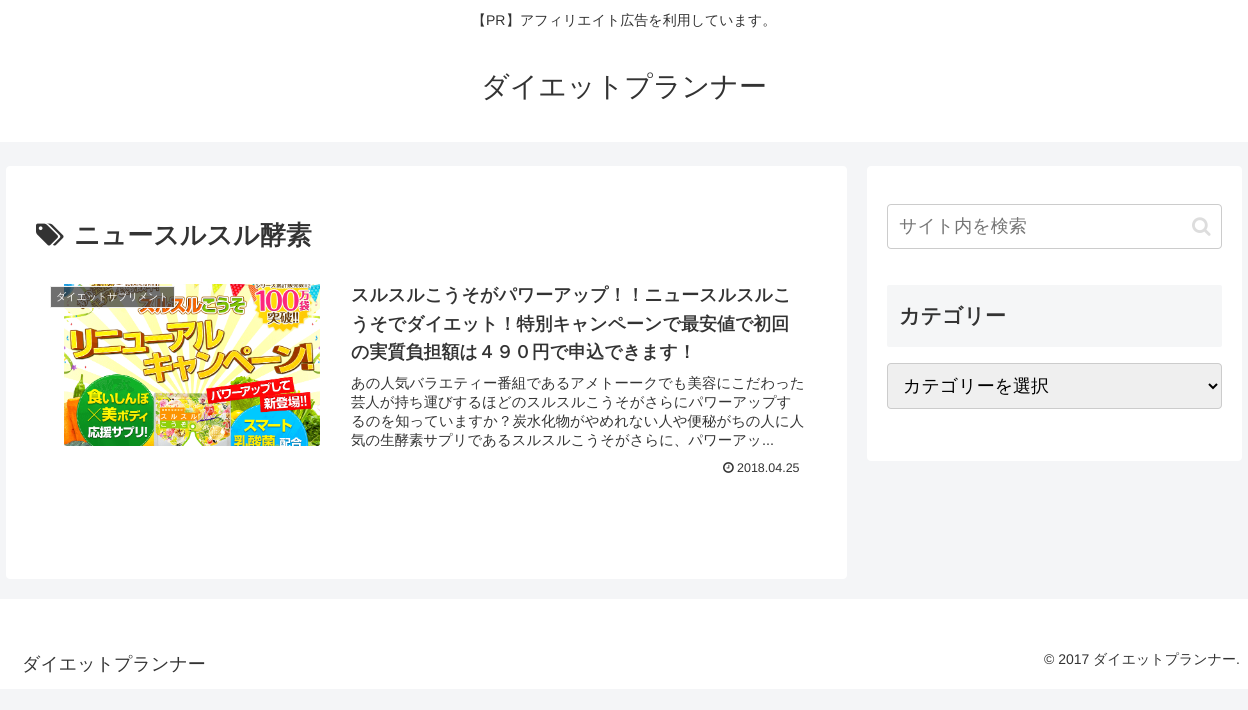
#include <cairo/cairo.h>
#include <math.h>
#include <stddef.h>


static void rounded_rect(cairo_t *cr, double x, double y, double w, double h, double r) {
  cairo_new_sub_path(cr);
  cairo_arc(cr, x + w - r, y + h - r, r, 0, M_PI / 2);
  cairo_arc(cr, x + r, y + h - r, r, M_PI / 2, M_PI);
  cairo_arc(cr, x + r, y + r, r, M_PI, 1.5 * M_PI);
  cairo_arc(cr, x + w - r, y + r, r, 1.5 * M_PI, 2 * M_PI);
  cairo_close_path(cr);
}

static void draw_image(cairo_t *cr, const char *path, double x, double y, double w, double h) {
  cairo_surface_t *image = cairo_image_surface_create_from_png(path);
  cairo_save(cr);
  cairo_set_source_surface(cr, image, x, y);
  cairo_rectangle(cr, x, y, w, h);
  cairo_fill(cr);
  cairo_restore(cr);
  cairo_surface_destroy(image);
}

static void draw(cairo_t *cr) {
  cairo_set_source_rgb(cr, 244 / 255.0, 245 / 255.0, 247 / 255.0);
  cairo_paint(cr);
  cairo_set_source_rgb(cr, 1, 1, 1);
  cairo_rectangle(cr, 0, 0, 1248, 142);
  cairo_fill(cr);
  rounded_rect(cr, 6, 166, 841, 413, 4);
  cairo_fill(cr);
  draw_image(cr, "images/1.png", 36, 223, 28, 23);
  draw_image(cr, "images/2.png", 64, 284, 256, 162);
  cairo_set_source_rgba(cr, 51 / 255.0, 51 / 255.0, 51 / 255.0, 0.7);
  cairo_rectangle(cr, 50.5, 286.5, 124, 21);
  cairo_fill_preserve(cr);
  cairo_set_source_rgb(cr, 238 / 255.0, 238 / 255.0, 238 / 255.0);
  cairo_set_line_width(cr, 1);
  cairo_stroke(cr);
  draw_image(cr, "images/3.png", 723, 462, 11, 11);
  cairo_set_source_rgb(cr, 1, 1, 1);
  rounded_rect(cr, 867, 166, 375, 295, 4);
  cairo_fill(cr);
  rounded_rect(cr, 887.5, 204.5, 334, 44, 3.5);
  cairo_set_source_rgb(cr, 204 / 255.0, 204 / 255.0, 204 / 255.0);
  cairo_stroke(cr);
  draw_image(cr, "images/4.png", 1192, 217, 19, 19);
  cairo_set_source_rgb(cr, 245 / 255.0, 246 / 255.0, 247 / 255.0);
  rounded_rect(cr, 887, 285, 335, 62, 2);
  cairo_fill(cr);
  cairo_set_source_rgb(cr, 239 / 255.0, 239 / 255.0, 239 / 255.0);
  rounded_rect(cr, 887.5, 363.5, 334, 45, 3.5);
  cairo_fill_preserve(cr);
  cairo_set_source_rgb(cr, 204 / 255.0, 204 / 255.0, 204 / 255.0);
  cairo_stroke(cr);
  cairo_new_path(cr);
  cairo_move_to(cr, 1209, 384);
  cairo_line_to(cr, 1213, 388);
  cairo_line_to(cr, 1217, 384);
  cairo_set_source_rgb(cr, 0, 0, 0);
  cairo_set_line_width(cr, 2);
  cairo_stroke(cr);
  cairo_set_source_rgb(cr, 1, 1, 1);
  cairo_rectangle(cr, 0, 599, 1248, 90);
  cairo_fill(cr);
  cairo_select_font_face(cr, "WenQuanYi Zen Hei Medium", CAIRO_FONT_SLANT_NORMAL, CAIRO_FONT_WEIGHT_NORMAL);
  cairo_set_font_size(cr, 14);
  cairo_set_source_rgb(cr, 51 / 255.0, 51 / 255.0, 51 / 255.0);
  cairo_move_to(cr, 472, 25);
  cairo_show_text(cr, "【");
  cairo_select_font_face(cr, "Liberation Sans", CAIRO_FONT_SLANT_NORMAL, CAIRO_FONT_WEIGHT_NORMAL);
  cairo_move_to(cr, 486, 25);
  cairo_show_text(cr, "PR");
  cairo_select_font_face(cr, "WenQuanYi Zen Hei Medium", CAIRO_FONT_SLANT_NORMAL, CAIRO_FONT_WEIGHT_NORMAL);
  cairo_move_to(cr, 506, 25);
  cairo_show_text(cr, "】アフィリエイト広告を利用しています。");
  cairo_set_font_size(cr, 28);
  cairo_move_to(cr, 481, 96);
  cairo_show_text(cr, "ダイエットプランナー");
  cairo_select_font_face(cr, "WenQuanYi Zen Hei", CAIRO_FONT_SLANT_NORMAL, CAIRO_FONT_WEIGHT_BOLD);
  cairo_set_font_size(cr, 26);
  cairo_move_to(cr, 74, 244);
  cairo_show_text(cr, "ニュースルスル酵素");
  cairo_select_font_face(cr, "WenQuanYi Zen Hei Medium", CAIRO_FONT_SLANT_NORMAL, CAIRO_FONT_WEIGHT_NORMAL);
  cairo_set_font_size(cr, 10);
  cairo_set_source_rgb(cr, 1, 1, 1);
  cairo_move_to(cr, 56, 300);
  cairo_show_text(cr, "ダイエットサプリメント");
  cairo_select_font_face(cr, "WenQuanYi Zen Hei", CAIRO_FONT_SLANT_NORMAL, CAIRO_FONT_WEIGHT_BOLD);
  cairo_set_font_size(cr, 18);
  cairo_set_source_rgb(cr, 51 / 255.0, 51 / 255.0, 51 / 255.0);
  cairo_move_to(cr, 351, 301);
  cairo_show_text(cr, "スルスルこうそがパワーアップ！！ニュースルスルこ");
  cairo_move_to(cr, 351, 330);
  cairo_show_text(cr, "うそでダイエット！特別キャンペーンで最安値で初回");
  cairo_move_to(cr, 351, 358);
  cairo_show_text(cr, "の実質負担額は４９０円で申込できます！");
  cairo_select_font_face(cr, "WenQuanYi Zen Hei Medium", CAIRO_FONT_SLANT_NORMAL, CAIRO_FONT_WEIGHT_NORMAL);
  cairo_set_font_size(cr, 14.4);
  cairo_move_to(cr, 351, 388);
  cairo_show_text(cr, "あの人気バラエティー番組であるアメトーークでも美容にこだわった");
  cairo_move_to(cr, 351, 407);
  cairo_show_text(cr, "芸人が持ち運びするほどのスルスルこうそがさらにパワーアップす");
  cairo_move_to(cr, 351, 426);
  cairo_show_text(cr, "るのを知っていますか？炭水化物がやめれない人や便秘がちの人に人");
  cairo_move_to(cr, 351, 445);
  cairo_show_text(cr, "気の生酵素サプリであるスルスルこうそがさらに、パワーアッ");
  cairo_select_font_face(cr, "Liberation Sans", CAIRO_FONT_SLANT_NORMAL, CAIRO_FONT_WEIGHT_NORMAL);
  cairo_move_to(cr, 762, 445);
  cairo_show_text(cr, "...");
  cairo_set_font_size(cr, 12.5);
  cairo_move_to(cr, 737, 472);
  cairo_show_text(cr, "2018.04.25");
  cairo_select_font_face(cr, "WenQuanYi Zen Hei Medium", CAIRO_FONT_SLANT_NORMAL, CAIRO_FONT_WEIGHT_NORMAL);
  cairo_set_font_size(cr, 18);
  cairo_set_source_rgb(cr, 117 / 255.0, 117 / 255.0, 117 / 255.0);
  cairo_move_to(cr, 899, 232);
  cairo_show_text(cr, "サイト内を検索");
  cairo_select_font_face(cr, "WenQuanYi Zen Hei", CAIRO_FONT_SLANT_NORMAL, CAIRO_FONT_WEIGHT_BOLD);
  cairo_set_font_size(cr, 21);
  cairo_set_source_rgb(cr, 51 / 255.0, 51 / 255.0, 51 / 255.0);
  cairo_move_to(cr, 899, 323);
  cairo_show_text(cr, "カテゴリー");
  cairo_select_font_face(cr, "WenQuanYi Zen Hei Medium", CAIRO_FONT_SLANT_NORMAL, CAIRO_FONT_WEIGHT_NORMAL);
  cairo_set_font_size(cr, 18);
  cairo_set_source_rgb(cr, 0, 0, 0);
  cairo_move_to(cr, 903, 392);
  cairo_show_text(cr, "カテゴリーを選択");
  cairo_set_source_rgb(cr, 51 / 255.0, 51 / 255.0, 51 / 255.0);
  cairo_move_to(cr, 22, 670);
  cairo_show_text(cr, "ダイエットプランナー");
  cairo_select_font_face(cr, "Liberation Sans", CAIRO_FONT_SLANT_NORMAL, CAIRO_FONT_WEIGHT_NORMAL);
  cairo_set_font_size(cr, 14);
  cairo_move_to(cr, 1044, 664);
  cairo_show_text(cr, "© 2017");
  cairo_select_font_face(cr, "WenQuanYi Zen Hei Medium", CAIRO_FONT_SLANT_NORMAL, CAIRO_FONT_WEIGHT_NORMAL);
  cairo_move_to(cr, 1093, 664);
  cairo_show_text(cr, "ダイエットプランナー");
  cairo_select_font_face(cr, "Liberation Sans", CAIRO_FONT_SLANT_NORMAL, CAIRO_FONT_WEIGHT_NORMAL);
  cairo_move_to(cr, 1236, 664);
  cairo_show_text(cr, ".");
}

int main(void) {
  cairo_surface_t *surface = cairo_image_surface_create(CAIRO_FORMAT_RGB24, 1248, 710);
  cairo_t *cr = cairo_create(surface);
  cairo_font_options_t *options = cairo_font_options_create();
  cairo_font_options_set_hint_metrics(options, CAIRO_HINT_METRICS_OFF);
  cairo_font_options_set_hint_style(options, CAIRO_HINT_STYLE_NONE);
  cairo_set_font_options(cr, options);
  cairo_set_miter_limit(cr, 4);
  draw(cr);
  cairo_surface_write_to_png(surface, "out.png");
  cairo_font_options_destroy(options);
  cairo_destroy(cr);
  cairo_surface_destroy(surface);
  return 0;
}
